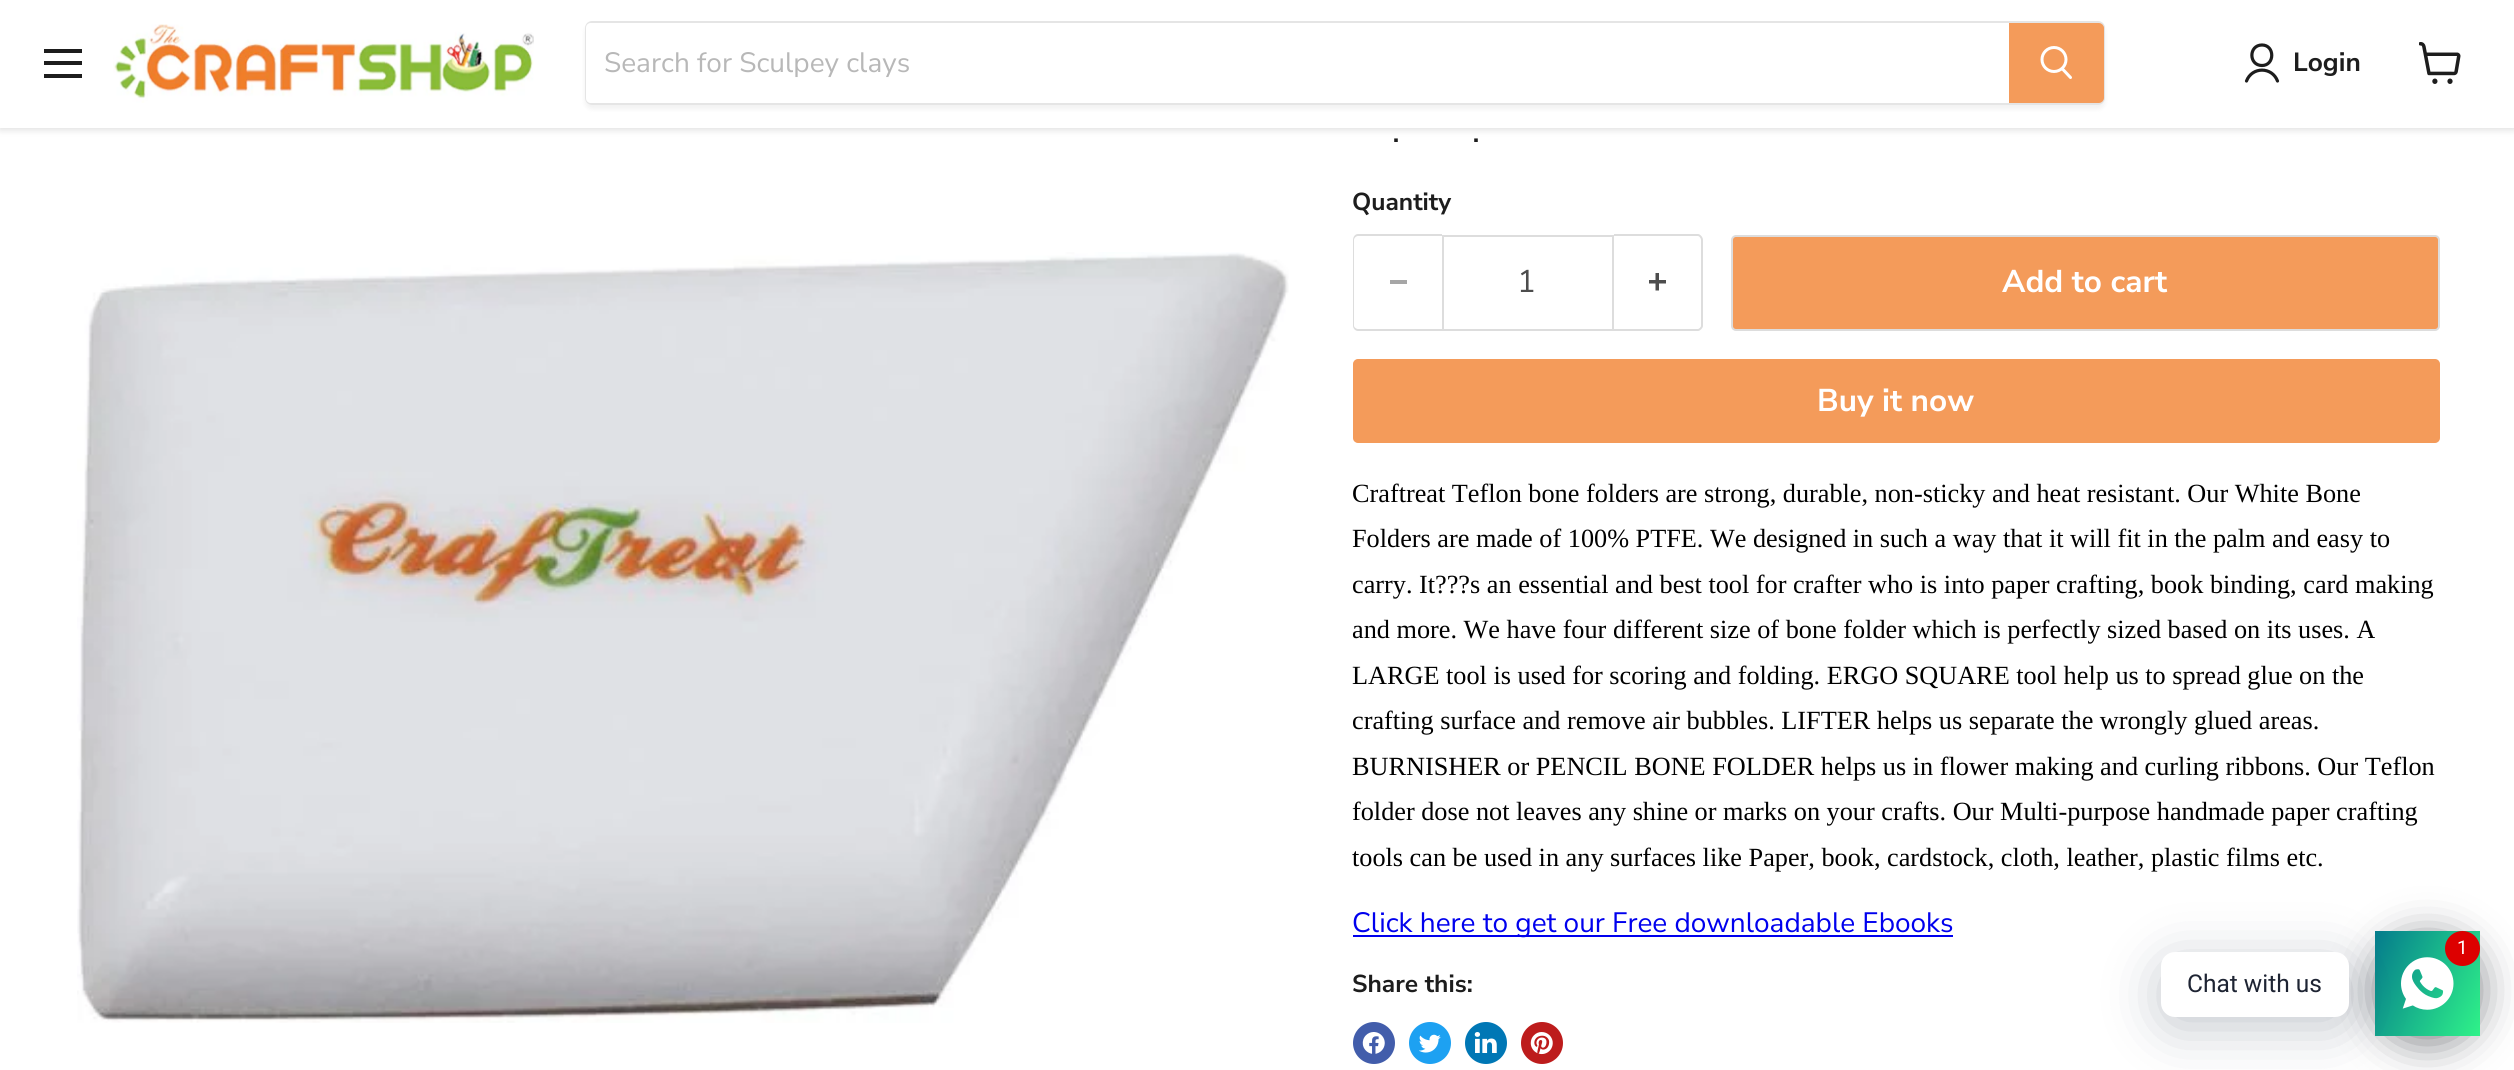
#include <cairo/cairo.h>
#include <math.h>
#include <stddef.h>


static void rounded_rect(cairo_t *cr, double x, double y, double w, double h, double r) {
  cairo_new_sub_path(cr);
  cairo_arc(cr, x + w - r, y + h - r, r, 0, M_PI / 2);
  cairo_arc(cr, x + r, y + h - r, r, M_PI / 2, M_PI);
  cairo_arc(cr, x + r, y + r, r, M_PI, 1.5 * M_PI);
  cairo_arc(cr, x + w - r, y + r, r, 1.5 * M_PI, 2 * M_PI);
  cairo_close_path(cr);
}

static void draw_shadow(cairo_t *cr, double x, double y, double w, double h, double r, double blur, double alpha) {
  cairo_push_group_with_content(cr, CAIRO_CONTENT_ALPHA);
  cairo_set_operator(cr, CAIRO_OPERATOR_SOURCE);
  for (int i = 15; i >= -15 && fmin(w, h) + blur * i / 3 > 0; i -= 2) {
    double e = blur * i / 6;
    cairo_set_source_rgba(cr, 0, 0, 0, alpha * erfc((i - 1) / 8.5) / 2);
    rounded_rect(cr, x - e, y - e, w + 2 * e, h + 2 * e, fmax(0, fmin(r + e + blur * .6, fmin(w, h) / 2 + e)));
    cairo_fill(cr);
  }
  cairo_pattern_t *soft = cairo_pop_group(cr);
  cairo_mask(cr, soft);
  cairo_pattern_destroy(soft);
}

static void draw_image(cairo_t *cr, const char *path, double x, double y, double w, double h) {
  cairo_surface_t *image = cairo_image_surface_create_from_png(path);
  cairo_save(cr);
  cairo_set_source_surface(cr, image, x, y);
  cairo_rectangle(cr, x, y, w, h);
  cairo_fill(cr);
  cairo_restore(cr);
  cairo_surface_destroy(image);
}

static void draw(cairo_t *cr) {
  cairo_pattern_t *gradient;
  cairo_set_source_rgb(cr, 1, 1, 1);
  cairo_paint(cr);
  cairo_set_source_rgb(cr, 128 / 255.0, 128 / 255.0, 128 / 255.0);
  draw_shadow(cr, 0, 2, 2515, 128, 0, 3.5, 0.25);
  cairo_set_source_rgb(cr, 1, 1, 1);
  cairo_rectangle(cr, 0, 0, 2514, 128);
  cairo_fill(cr);
  cairo_set_source_rgb(cr, 29 / 255.0, 29 / 255.0, 29 / 255.0);
  cairo_rectangle(cr, 44, 49, 38, 4);
  cairo_fill(cr);
  cairo_rectangle(cr, 44, 61, 38, 4);
  cairo_fill(cr);
  cairo_rectangle(cr, 44, 74, 38, 4);
  cairo_fill(cr);
  draw_image(cr, "images/1.png", 113, 24, 421, 79);
  cairo_save(cr);
  cairo_set_fill_rule(cr, CAIRO_FILL_RULE_EVEN_ODD);
  cairo_new_path(cr);
  cairo_move_to(cr, 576, 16);
  cairo_line_to(cr, 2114, 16);
  cairo_line_to(cr, 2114, 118);
  cairo_line_to(cr, 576, 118);
  cairo_close_path(cr);
  cairo_move_to(cr, 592, 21);
  cairo_line_to(cr, 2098, 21);
  cairo_curve_to(cr, 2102, 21, 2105, 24, 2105, 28);
  cairo_line_to(cr, 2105, 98);
  cairo_curve_to(cr, 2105, 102, 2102, 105, 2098, 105);
  cairo_line_to(cr, 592, 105);
  cairo_curve_to(cr, 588, 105, 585, 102, 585, 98);
  cairo_line_to(cr, 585, 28);
  cairo_curve_to(cr, 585, 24, 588, 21, 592, 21);
  cairo_close_path(cr);
  cairo_clip(cr);
  cairo_set_source_rgb(cr, 128 / 255.0, 128 / 255.0, 128 / 255.0);
  draw_shadow(cr, 585, 25, 1520, 84, 7, 2.5, 0.11);
  cairo_restore(cr);
  rounded_rect(cr, 586, 22, 1518, 82, 6);
  cairo_set_source_rgba(cr, 128 / 255.0, 128 / 255.0, 128 / 255.0, 0.2);
  cairo_stroke(cr);
  cairo_set_source_rgb(cr, 1, 1, 1);
  cairo_new_path(cr);
  cairo_move_to(cr, 591, 23);
  cairo_line_to(cr, 2009, 23);
  cairo_line_to(cr, 2009, 103);
  cairo_line_to(cr, 591, 103);
  cairo_curve_to(cr, 588, 103, 586, 101, 586, 98);
  cairo_line_to(cr, 586, 28);
  cairo_curve_to(cr, 586, 25, 588, 23, 591, 23);
  cairo_close_path(cr);
  cairo_fill(cr);
  cairo_set_source_rgb(cr, 244 / 255.0, 155 / 255.0, 90 / 255.0);
  cairo_new_path(cr);
  cairo_move_to(cr, 2010, 24);
  cairo_line_to(cr, 2099, 24);
  cairo_curve_to(cr, 2101, 24, 2103, 26, 2103, 28);
  cairo_line_to(cr, 2103, 98);
  cairo_curve_to(cr, 2103, 100, 2101, 102, 2099, 102);
  cairo_line_to(cr, 2010, 102);
  cairo_close_path(cr);
  cairo_fill_preserve(cr);
  cairo_stroke(cr);
  cairo_new_path(cr);
  cairo_move_to(cr, 2070.5, 77.5);
  cairo_line_to(cr, 2062.5, 69);
  cairo_set_source_rgb(cr, 1, 1, 1);
  cairo_set_line_width(cr, 3);
  cairo_set_line_cap(cr, CAIRO_LINE_CAP_ROUND);
  cairo_stroke(cr);
  cairo_arc(cr, 2054, 59.5, 12, 0, 2 * M_PI);
  cairo_set_line_cap(cr, CAIRO_LINE_CAP_BUTT);
  cairo_stroke(cr);
  cairo_new_path(cr);
  cairo_move_to(cr, 2262, 65.5);
  cairo_curve_to(cr, 2275, 65.5, 2275, 45, 2262, 45);
  cairo_curve_to(cr, 2248.5, 45, 2248.5, 65.5, 2262, 65.5);
  cairo_close_path(cr);
  cairo_move_to(cr, 2277.5, 81);
  cairo_curve_to(cr, 2272, 66.5, 2252, 66.5, 2246.5, 81);
  cairo_set_source_rgb(cr, 29 / 255.0, 29 / 255.0, 29 / 255.0);
  cairo_set_line_width(cr, 3.2);
  cairo_set_line_cap(cr, CAIRO_LINE_CAP_ROUND);
  cairo_set_line_join(cr, CAIRO_LINE_JOIN_ROUND);
  cairo_stroke(cr);
  draw_image(cr, "images/2.png", 2419, 42, 42, 42);
  draw_image(cr, "images/3.png", 77, 252, 1212, 771);
  cairo_set_source_rgb(cr, 221 / 255.0, 221 / 255.0, 221 / 255.0);
  cairo_set_fill_rule(cr, CAIRO_FILL_RULE_EVEN_ODD);
  cairo_new_path(cr);
  cairo_move_to(cr, 1358, 234);
  cairo_line_to(cr, 1442, 234);
  cairo_line_to(cr, 1442, 331);
  cairo_line_to(cr, 1358, 331);
  cairo_curve_to(cr, 1355, 331, 1353, 328, 1353, 326);
  cairo_line_to(cr, 1353, 240);
  cairo_curve_to(cr, 1353, 237, 1355, 234, 1358, 234);
  cairo_close_path(cr);
  cairo_move_to(cr, 1358, 236);
  cairo_line_to(cr, 1442, 236);
  cairo_line_to(cr, 1442, 329);
  cairo_line_to(cr, 1358, 329);
  cairo_curve_to(cr, 1356, 329, 1354, 327, 1354, 326);
  cairo_line_to(cr, 1354, 240);
  cairo_curve_to(cr, 1354, 238, 1356, 236, 1358, 236);
  cairo_close_path(cr);
  cairo_fill(cr);
  cairo_set_source_rgb(cr, 166 / 255.0, 166 / 255.0, 166 / 255.0);
  cairo_rectangle(cr, 1390, 280, 17, 4);
  cairo_fill(cr);
  cairo_rectangle(cr, 1443, 236, 170, 94);
  cairo_set_source_rgb(cr, 221 / 255.0, 221 / 255.0, 221 / 255.0);
  cairo_set_line_width(cr, 2);
  cairo_set_line_cap(cr, CAIRO_LINE_CAP_BUTT);
  cairo_set_line_join(cr, CAIRO_LINE_JOIN_MITER);
  cairo_stroke(cr);
  cairo_new_path(cr);
  cairo_move_to(cr, 1614, 234);
  cairo_line_to(cr, 1698, 234);
  cairo_curve_to(cr, 1700, 234, 1703, 237, 1703, 240);
  cairo_line_to(cr, 1703, 326);
  cairo_curve_to(cr, 1703, 328, 1700, 331, 1698, 331);
  cairo_line_to(cr, 1614, 331);
  cairo_close_path(cr);
  cairo_move_to(cr, 1614, 236);
  cairo_line_to(cr, 1698, 236);
  cairo_curve_to(cr, 1699, 236, 1701, 238, 1701, 240);
  cairo_line_to(cr, 1701, 326);
  cairo_curve_to(cr, 1701, 327, 1699, 329, 1698, 329);
  cairo_line_to(cr, 1614, 329);
  cairo_close_path(cr);
  cairo_fill(cr);
  draw_image(cr, "images/4.png", 1649, 273, 17, 18);
  cairo_set_source_rgb(cr, 244 / 255.0, 155 / 255.0, 90 / 255.0);
  rounded_rect(cr, 1732, 236, 707, 94, 4);
  cairo_fill_preserve(cr);
  cairo_set_source_rgb(cr, 221 / 255.0, 221 / 255.0, 221 / 255.0);
  cairo_stroke(cr);
  cairo_set_source_rgb(cr, 244 / 255.0, 155 / 255.0, 90 / 255.0);
  rounded_rect(cr, 1354, 360, 1085, 82, 4);
  cairo_fill_preserve(cr);
  cairo_stroke(cr);
  cairo_set_source_rgb(cr, 0, 0, 238 / 255.0);
  cairo_rectangle(cr, 1353, 935, 600, 2);
  cairo_fill(cr);
  cairo_set_source_rgb(cr, 66 / 255.0, 93 / 255.0, 171 / 255.0);
  cairo_arc(cr, 1374, 1043, 21, 0, 2 * M_PI);
  cairo_fill(cr);
  draw_image(cr, "images/5.png", 1362, 1032, 23, 22);
  cairo_set_source_rgb(cr, 29 / 255.0, 161 / 255.0, 242 / 255.0);
  cairo_arc(cr, 1430, 1043, 21, 0, 2 * M_PI);
  cairo_fill(cr);
  draw_image(cr, "images/6.png", 1419, 1034, 22, 19);
  cairo_set_source_rgb(cr, 0, 119 / 255.0, 181 / 255.0);
  cairo_arc(cr, 1486, 1043, 21, 0, 2 * M_PI);
  cairo_fill(cr);
  draw_image(cr, "images/7.png", 1474, 1032, 23, 21);
  cairo_set_source_rgb(cr, 189 / 255.0, 28 / 255.0, 28 / 255.0);
  cairo_arc(cr, 1542, 1043, 21, 0, 2 * M_PI);
  cairo_fill(cr);
  draw_image(cr, "images/8.png", 1530, 1032, 23, 23);
  cairo_set_source_rgb(cr, 2 / 255.0, 6 / 255.0, 16 / 255.0);
  draw_shadow(cr, 2375, 938, 105, 105, 52.5, 21, 0.5);
  gradient = cairo_pattern_create_linear(2364, 954, 2490, 1013);
  cairo_pattern_add_color_stop_rgba(gradient, 0, 4 / 255.0, 124 / 255.0, 141 / 255.0, 1);
  cairo_pattern_add_color_stop_rgba(gradient, 1, 47 / 255.0, 242 / 255.0, 137 / 255.0, 1);
  cairo_set_source(cr, gradient);
  cairo_pattern_destroy(gradient);
  cairo_rectangle(cr, 2375, 931, 105, 105);
  cairo_fill(cr);
  cairo_set_source_rgb(cr, 0, 18 / 255.0, 46 / 255.0);
  draw_shadow(cr, 2161, 963, 188, 64, 14, 28, 0.24);
  draw_image(cr, "images/9.png", 2401, 957, 53, 53);
  cairo_set_source_rgb(cr, 221 / 255.0, 0, 0);
  cairo_arc(cr, 2462.5, 948.5, 17.5, 0, 2 * M_PI);
  cairo_fill(cr);
  cairo_set_source_rgb(cr, 1, 1, 1);
  rounded_rect(cr, 2161, 952, 188, 65, 14);
  cairo_fill(cr);
  cairo_select_font_face(cr, "Nunito Sans", CAIRO_FONT_SLANT_NORMAL, CAIRO_FONT_WEIGHT_NORMAL);
  cairo_set_font_size(cr, 28);
  cairo_set_source_rgb(cr, 184 / 255.0, 184 / 255.0, 184 / 255.0);
  cairo_move_to(cr, 604, 72);
  cairo_show_text(cr, "Search for Sculpey clays");
  cairo_select_font_face(cr, "Nunito Sans", CAIRO_FONT_SLANT_NORMAL, CAIRO_FONT_WEIGHT_BOLD);
  cairo_set_font_size(cr, 26.25);
  cairo_set_source_rgb(cr, 29 / 255.0, 29 / 255.0, 29 / 255.0);
  cairo_move_to(cr, 2293, 71);
  cairo_show_text(cr, "Login");
  cairo_select_font_face(cr, "Nunito Sans", CAIRO_FONT_SLANT_NORMAL, CAIRO_FONT_WEIGHT_NORMAL);
  cairo_set_font_size(cr, 35);
  cairo_move_to(cr, 1392, 142);
  cairo_show_text(cr, ".");
  cairo_move_to(cr, 1472, 142);
  cairo_show_text(cr, ".");
  cairo_select_font_face(cr, "Nunito Sans", CAIRO_FONT_SLANT_NORMAL, CAIRO_FONT_WEIGHT_BOLD);
  cairo_set_font_size(cr, 24.5);
  cairo_move_to(cr, 1352, 210);
  cairo_show_text(cr, "Quantity");
  cairo_select_font_face(cr, "Nunito Sans", CAIRO_FONT_SLANT_NORMAL, CAIRO_FONT_WEIGHT_NORMAL);
  cairo_set_font_size(cr, 31.5);
  cairo_set_source_rgb(cr, 77 / 255.0, 77 / 255.0, 77 / 255.0);
  cairo_move_to(cr, 1517, 292);
  cairo_show_text(cr, "1");
  cairo_select_font_face(cr, "Nunito Sans", CAIRO_FONT_SLANT_NORMAL, CAIRO_FONT_WEIGHT_BOLD);
  cairo_set_source_rgb(cr, 1, 1, 1);
  cairo_move_to(cr, 2002, 292);
  cairo_show_text(cr, "Add to cart");
  cairo_move_to(cr, 1817, 411);
  cairo_show_text(cr, "Buy it now");
  cairo_select_font_face(cr, "Liberation Serif", CAIRO_FONT_SLANT_NORMAL, CAIRO_FONT_WEIGHT_NORMAL);
  cairo_set_font_size(cr, 26.25);
  cairo_set_source_rgb(cr, 0, 0, 0);
  cairo_move_to(cr, 1352, 502);
  cairo_show_text(cr, "Craftreat Teflon bone folders are strong, durable, non-sticky and heat resistant. Our White Bone");
  cairo_move_to(cr, 1352, 547);
  cairo_show_text(cr, "Folders are made of 100% PTFE. We designed in such a way that it will fit in the palm and easy to");
  cairo_move_to(cr, 1352, 593);
  cairo_show_text(cr, "carry. It?\077?s an essential and best tool for crafter who is into paper crafting, book binding, card making");
  cairo_move_to(cr, 1352, 638);
  cairo_show_text(cr, "and more. We have four different size of bone folder which is perfectly sized based on its uses. A");
  cairo_move_to(cr, 1352, 684);
  cairo_show_text(cr, "LARGE tool is used for scoring and folding. ERGO SQUARE tool help us to spread glue on the");
  cairo_move_to(cr, 1352, 729);
  cairo_show_text(cr, "crafting surface and remove air bubbles. LIFTER helps us separate the wrongly glued areas.");
  cairo_move_to(cr, 1352, 775);
  cairo_show_text(cr, "BURNISHER or PENCIL BONE FOLDER helps us in flower making and curling ribbons. Our Teflon");
  cairo_move_to(cr, 1352, 820);
  cairo_show_text(cr, "folder dose not leaves any shine or marks on your crafts. Our Multi-purpose handmade paper crafting");
  cairo_move_to(cr, 1352, 866);
  cairo_show_text(cr, "tools can be used in any surfaces like Paper, book, cardstock, cloth, leather, plastic films etc.");
  cairo_select_font_face(cr, "Nunito Sans", CAIRO_FONT_SLANT_NORMAL, CAIRO_FONT_WEIGHT_NORMAL);
  cairo_set_font_size(cr, 28);
  cairo_set_source_rgb(cr, 0, 0, 238 / 255.0);
  cairo_move_to(cr, 1352, 932);
  cairo_show_text(cr, "Click here to get our Free downloadable Ebooks");
  cairo_select_font_face(cr, "Nunito Sans", CAIRO_FONT_SLANT_NORMAL, CAIRO_FONT_WEIGHT_BOLD);
  cairo_set_font_size(cr, 24.5);
  cairo_set_source_rgb(cr, 29 / 255.0, 29 / 255.0, 29 / 255.0);
  cairo_move_to(cr, 1352, 992);
  cairo_show_text(cr, "Share this:");
  cairo_select_font_face(cr, "Roboto", CAIRO_FONT_SLANT_NORMAL, CAIRO_FONT_WEIGHT_NORMAL);
  cairo_set_font_size(cr, 19);
  cairo_set_source_rgb(cr, 1, 1, 1);
  cairo_move_to(cr, 2457, 954);
  cairo_show_text(cr, "1");
  cairo_set_font_size(cr, 24.5);
  cairo_set_source_rgb(cr, 30 / 255.0, 36 / 255.0, 51 / 255.0);
  cairo_move_to(cr, 2187, 992);
  cairo_show_text(cr, "Chat with us");
}

int main(void) {
  cairo_surface_t *surface = cairo_image_surface_create(CAIRO_FORMAT_RGB24, 2514, 1070);
  cairo_t *cr = cairo_create(surface);
  cairo_font_options_t *options = cairo_font_options_create();
  cairo_font_options_set_hint_metrics(options, CAIRO_HINT_METRICS_OFF);
  cairo_font_options_set_hint_style(options, CAIRO_HINT_STYLE_NONE);
  cairo_set_font_options(cr, options);
  cairo_set_miter_limit(cr, 4);
  draw(cr);
  cairo_surface_write_to_png(surface, "out.png");
  cairo_font_options_destroy(options);
  cairo_destroy(cr);
  cairo_surface_destroy(surface);
  return 0;
}
